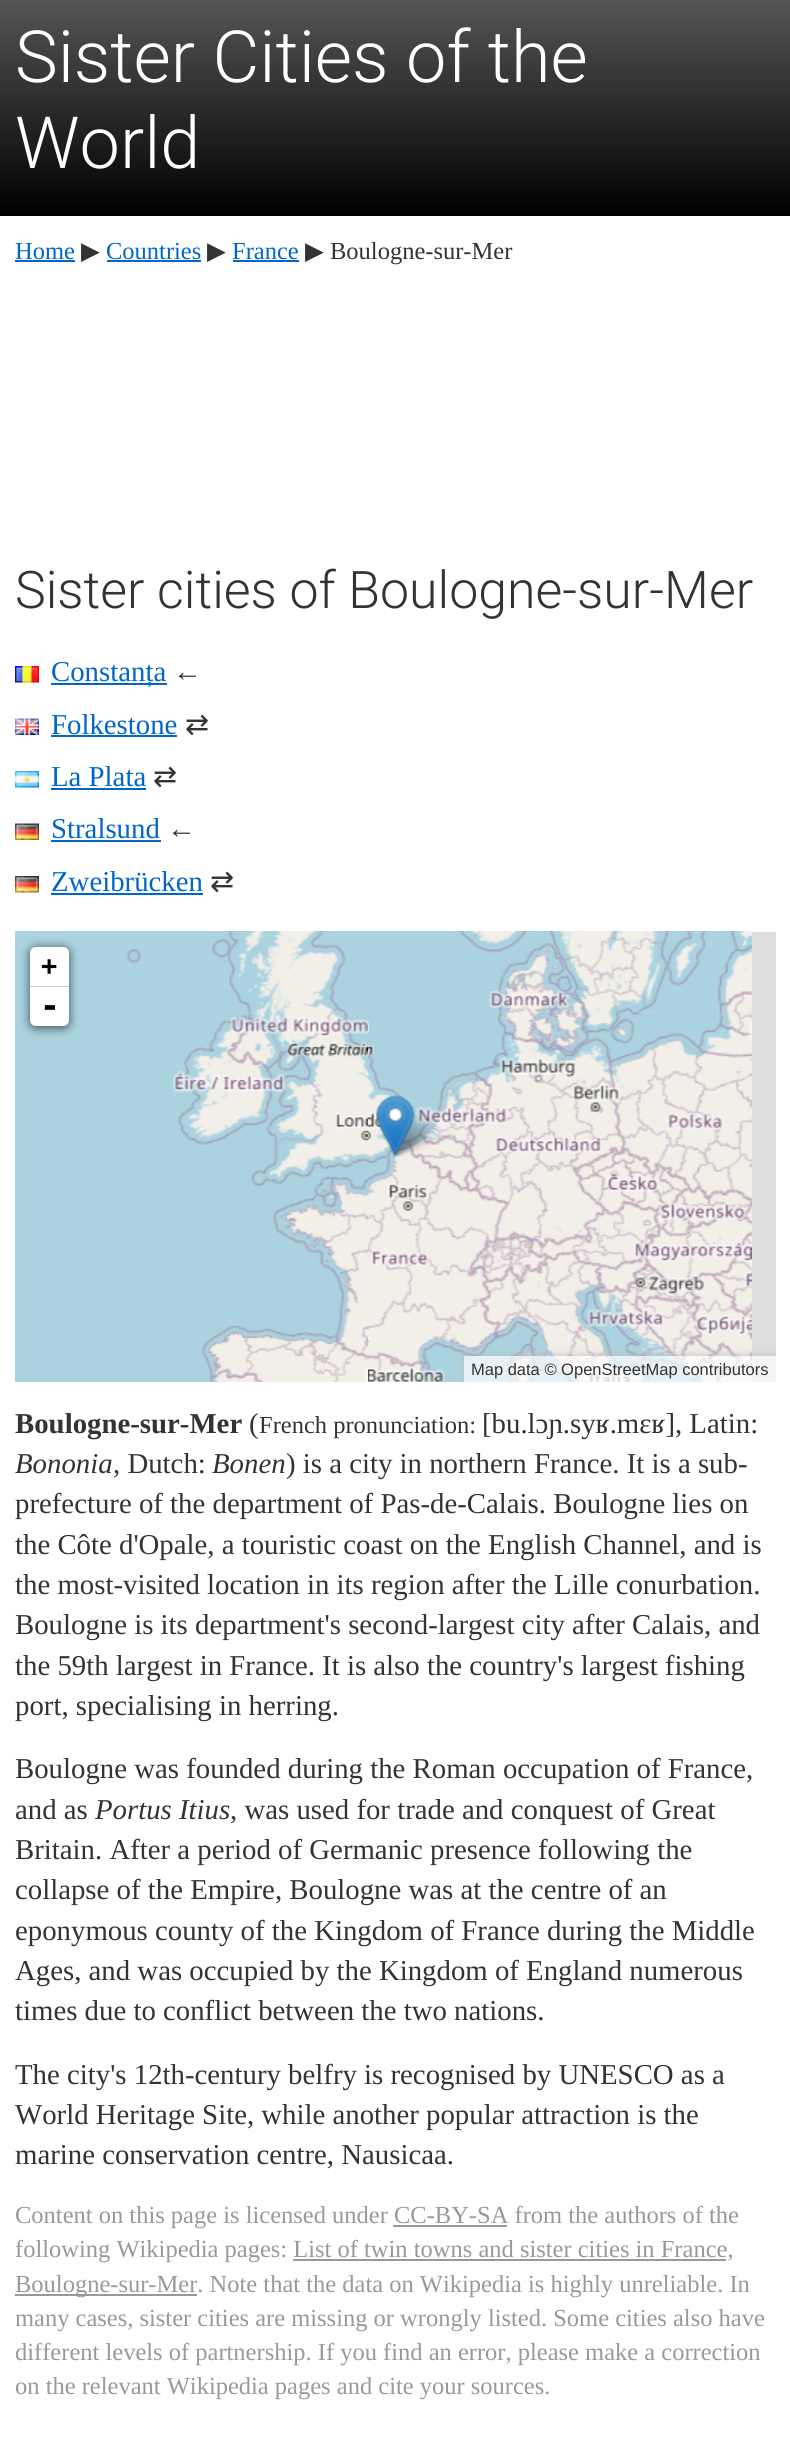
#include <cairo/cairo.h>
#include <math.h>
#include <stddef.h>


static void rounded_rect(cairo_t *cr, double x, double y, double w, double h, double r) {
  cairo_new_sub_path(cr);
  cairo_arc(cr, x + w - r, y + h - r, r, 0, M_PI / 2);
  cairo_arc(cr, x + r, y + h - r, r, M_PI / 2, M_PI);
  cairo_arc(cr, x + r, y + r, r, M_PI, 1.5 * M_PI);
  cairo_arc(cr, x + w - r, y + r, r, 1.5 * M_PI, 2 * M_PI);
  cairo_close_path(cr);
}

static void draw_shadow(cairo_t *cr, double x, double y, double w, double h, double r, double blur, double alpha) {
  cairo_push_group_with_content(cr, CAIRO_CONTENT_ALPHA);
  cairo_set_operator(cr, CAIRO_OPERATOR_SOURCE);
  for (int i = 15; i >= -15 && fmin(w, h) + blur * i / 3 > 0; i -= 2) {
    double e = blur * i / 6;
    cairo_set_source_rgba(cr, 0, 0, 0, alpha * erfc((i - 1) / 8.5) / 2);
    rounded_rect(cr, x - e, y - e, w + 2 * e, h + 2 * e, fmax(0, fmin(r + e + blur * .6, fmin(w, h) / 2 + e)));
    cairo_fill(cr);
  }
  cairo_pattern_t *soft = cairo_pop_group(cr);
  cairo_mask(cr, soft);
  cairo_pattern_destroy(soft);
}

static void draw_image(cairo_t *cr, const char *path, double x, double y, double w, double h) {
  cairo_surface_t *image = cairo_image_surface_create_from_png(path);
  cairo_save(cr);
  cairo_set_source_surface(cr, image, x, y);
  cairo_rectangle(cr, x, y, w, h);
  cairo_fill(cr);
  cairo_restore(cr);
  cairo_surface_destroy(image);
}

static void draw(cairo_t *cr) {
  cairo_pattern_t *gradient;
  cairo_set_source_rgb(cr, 1, 1, 1);
  cairo_paint(cr);
  gradient = cairo_pattern_create_linear(395, 0, 395, 216);
  cairo_pattern_add_color_stop_rgba(gradient, 0, 85 / 255.0, 85 / 255.0, 85 / 255.0, 1);
  cairo_pattern_add_color_stop_rgba(gradient, 1, 0, 0, 0, 1);
  cairo_set_source(cr, gradient);
  cairo_pattern_destroy(gradient);
  cairo_rectangle(cr, 0, 0, 790, 216);
  cairo_fill(cr);
  cairo_set_source_rgb(cr, 0, 102 / 255.0, 204 / 255.0);
  cairo_rectangle(cr, 15, 260, 60, 2);
  cairo_fill(cr);
  cairo_rectangle(cr, 107, 260, 94, 2);
  cairo_fill(cr);
  cairo_rectangle(cr, 233, 260, 66, 2);
  cairo_fill(cr);
  draw_image(cr, "images/1.png", 15, 666, 24, 17);
  cairo_rectangle(cr, 51, 683, 116, 2);
  cairo_fill(cr);
  draw_image(cr, "images/2.png", 15, 718, 24, 17);
  cairo_rectangle(cr, 51, 735, 126, 2);
  cairo_fill(cr);
  draw_image(cr, "images/3.png", 15, 771, 24, 17);
  cairo_rectangle(cr, 51, 788, 95, 2);
  cairo_fill(cr);
  draw_image(cr, "images/4.png", 15, 823, 24, 17);
  cairo_rectangle(cr, 51, 840, 110, 2);
  cairo_fill(cr);
  draw_image(cr, "images/5.png", 15, 876, 24, 17);
  cairo_rectangle(cr, 51, 893, 152, 2);
  cairo_fill(cr);
  cairo_set_source_rgb(cr, 221 / 255.0, 221 / 255.0, 221 / 255.0);
  cairo_rectangle(cr, 15, 932, 761, 450);
  cairo_fill(cr);
  draw_image(cr, "images/6.png", 15, 931, 353, 82);
  draw_image(cr, "images/7.png", 368, 931, 384, 82);
  draw_image(cr, "images/8.png", 15, 1012, 353, 370);
  draw_image(cr, "images/9.png", 368, 1012, 384, 370);
  draw_image(cr, "images/11.png", 390, 1114, 45, 43);
  draw_image(cr, "images/10.png", 376, 1094, 39, 63);
  cairo_set_source_rgb(cr, 0, 0, 0);
  draw_shadow(cr, 30, 948, 39, 80, 6, 5, 0.65);
  cairo_set_source_rgb(cr, 1, 1, 1);
  cairo_new_path(cr);
  cairo_move_to(cr, 36, 947);
  cairo_line_to(cr, 63, 947);
  cairo_curve_to(cr, 66.5, 947, 69, 949.5, 69, 953);
  cairo_line_to(cr, 69, 987);
  cairo_line_to(cr, 30, 987);
  cairo_line_to(cr, 30, 953);
  cairo_curve_to(cr, 30, 949.5, 32.5, 947, 36, 947);
  cairo_close_path(cr);
  cairo_fill(cr);
  cairo_set_source_rgb(cr, 204 / 255.0, 204 / 255.0, 204 / 255.0);
  cairo_rectangle(cr, 30, 986, 39, 1);
  cairo_fill(cr);
  cairo_set_source_rgb(cr, 1, 1, 1);
  cairo_new_path(cr);
  cairo_move_to(cr, 30, 987);
  cairo_line_to(cr, 69, 987);
  cairo_line_to(cr, 69, 1020);
  cairo_curve_to(cr, 69, 1023.5, 66.5, 1026, 63, 1026);
  cairo_line_to(cr, 36, 1026);
  cairo_curve_to(cr, 32.5, 1026, 30, 1023.5, 30, 1020);
  cairo_close_path(cr);
  cairo_fill(cr);
  cairo_save(cr);
  cairo_rectangle(cr, 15, 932, 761, 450);
  cairo_clip(cr);
  cairo_set_fill_rule(cr, CAIRO_FILL_RULE_EVEN_ODD);
  cairo_new_path(cr);
  cairo_move_to(cr, 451, 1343);
  cairo_line_to(cr, 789, 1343);
  cairo_line_to(cr, 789, 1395);
  cairo_line_to(cr, 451, 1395);
  cairo_close_path(cr);
  cairo_move_to(cr, 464, 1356);
  cairo_line_to(cr, 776, 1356);
  cairo_line_to(cr, 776, 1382);
  cairo_line_to(cr, 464, 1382);
  cairo_close_path(cr);
  cairo_clip(cr);
  cairo_set_source_rgb(cr, 187 / 255.0, 187 / 255.0, 187 / 255.0);
  draw_shadow(cr, 464, 1356, 312, 26, 0, 4, 1);
  cairo_restore(cr);
  cairo_set_source_rgba(cr, 1, 1, 1, 0.7);
  cairo_rectangle(cr, 464, 1356, 312, 26);
  cairo_fill(cr);
  cairo_set_source_rgb(cr, 153 / 255.0, 153 / 255.0, 153 / 255.0);
  cairo_rectangle(cr, 393, 2225, 114, 2);
  cairo_fill(cr);
  cairo_rectangle(cr, 293, 2259, 433, 2);
  cairo_fill(cr);
  cairo_rectangle(cr, 15, 2294, 182, 2);
  cairo_fill(cr);
  cairo_select_font_face(cr, "Roboto Light", CAIRO_FONT_SLANT_NORMAL, CAIRO_FONT_WEIGHT_NORMAL);
  cairo_set_font_size(cr, 72);
  cairo_set_source_rgb(cr, 1, 1, 1);
  cairo_move_to(cr, 15, 82);
  cairo_show_text(cr, "Sister Cities of the");
  cairo_move_to(cr, 15, 168);
  cairo_show_text(cr, "World");
  cairo_select_font_face(cr, "Liberation Serif", CAIRO_FONT_SLANT_NORMAL, CAIRO_FONT_WEIGHT_NORMAL);
  cairo_set_font_size(cr, 24.5);
  cairo_set_source_rgb(cr, 0, 102 / 255.0, 204 / 255.0);
  cairo_move_to(cr, 15, 259);
  cairo_show_text(cr, "Home");
  cairo_select_font_face(cr, "DejaVu Sans", CAIRO_FONT_SLANT_NORMAL, CAIRO_FONT_WEIGHT_NORMAL);
  cairo_set_source_rgb(cr, 51 / 255.0, 51 / 255.0, 51 / 255.0);
  cairo_move_to(cr, 81, 259);
  cairo_show_text(cr, "▶");
  cairo_select_font_face(cr, "Liberation Serif", CAIRO_FONT_SLANT_NORMAL, CAIRO_FONT_WEIGHT_NORMAL);
  cairo_set_source_rgb(cr, 0, 102 / 255.0, 204 / 255.0);
  cairo_move_to(cr, 106, 259);
  cairo_show_text(cr, "Countries");
  cairo_select_font_face(cr, "DejaVu Sans", CAIRO_FONT_SLANT_NORMAL, CAIRO_FONT_WEIGHT_NORMAL);
  cairo_set_source_rgb(cr, 51 / 255.0, 51 / 255.0, 51 / 255.0);
  cairo_move_to(cr, 207, 259);
  cairo_show_text(cr, "▶");
  cairo_select_font_face(cr, "Liberation Serif", CAIRO_FONT_SLANT_NORMAL, CAIRO_FONT_WEIGHT_NORMAL);
  cairo_set_source_rgb(cr, 0, 102 / 255.0, 204 / 255.0);
  cairo_move_to(cr, 232, 259);
  cairo_show_text(cr, "France");
  cairo_select_font_face(cr, "DejaVu Sans", CAIRO_FONT_SLANT_NORMAL, CAIRO_FONT_WEIGHT_NORMAL);
  cairo_set_source_rgb(cr, 51 / 255.0, 51 / 255.0, 51 / 255.0);
  cairo_move_to(cr, 305, 259);
  cairo_show_text(cr, "▶");
  cairo_select_font_face(cr, "Liberation Serif", CAIRO_FONT_SLANT_NORMAL, CAIRO_FONT_WEIGHT_NORMAL);
  cairo_move_to(cr, 330, 259);
  cairo_show_text(cr, "Boulogne-sur-Mer");
  cairo_select_font_face(cr, "Roboto Light", CAIRO_FONT_SLANT_NORMAL, CAIRO_FONT_WEIGHT_NORMAL);
  cairo_set_font_size(cr, 51.8);
  cairo_move_to(cr, 15, 608);
  cairo_show_text(cr, "Sister cities of Boulogne-sur-Mer");
  cairo_select_font_face(cr, "Liberation Serif", CAIRO_FONT_SLANT_NORMAL, CAIRO_FONT_WEIGHT_NORMAL);
  cairo_set_font_size(cr, 28.8);
  cairo_set_source_rgb(cr, 0, 102 / 255.0, 204 / 255.0);
  cairo_move_to(cr, 51, 681);
  cairo_show_text(cr, "Constanța");
  cairo_set_source_rgb(cr, 51 / 255.0, 51 / 255.0, 51 / 255.0);
  cairo_move_to(cr, 173, 681);
  cairo_show_text(cr, "←");
  cairo_set_source_rgb(cr, 0, 102 / 255.0, 204 / 255.0);
  cairo_move_to(cr, 51, 734);
  cairo_show_text(cr, "Folkestone");
  cairo_select_font_face(cr, "DejaVu Sans", CAIRO_FONT_SLANT_NORMAL, CAIRO_FONT_WEIGHT_NORMAL);
  cairo_set_source_rgb(cr, 51 / 255.0, 51 / 255.0, 51 / 255.0);
  cairo_move_to(cr, 185, 734);
  cairo_show_text(cr, "⇄");
  cairo_select_font_face(cr, "Liberation Serif", CAIRO_FONT_SLANT_NORMAL, CAIRO_FONT_WEIGHT_NORMAL);
  cairo_set_source_rgb(cr, 0, 102 / 255.0, 204 / 255.0);
  cairo_move_to(cr, 51, 786);
  cairo_show_text(cr, "La Plata");
  cairo_select_font_face(cr, "DejaVu Sans", CAIRO_FONT_SLANT_NORMAL, CAIRO_FONT_WEIGHT_NORMAL);
  cairo_set_source_rgb(cr, 51 / 255.0, 51 / 255.0, 51 / 255.0);
  cairo_move_to(cr, 153, 786);
  cairo_show_text(cr, "⇄");
  cairo_select_font_face(cr, "Liberation Serif", CAIRO_FONT_SLANT_NORMAL, CAIRO_FONT_WEIGHT_NORMAL);
  cairo_set_source_rgb(cr, 0, 102 / 255.0, 204 / 255.0);
  cairo_move_to(cr, 51, 838);
  cairo_show_text(cr, "Stralsund");
  cairo_set_source_rgb(cr, 51 / 255.0, 51 / 255.0, 51 / 255.0);
  cairo_move_to(cr, 167, 838);
  cairo_show_text(cr, "←");
  cairo_set_source_rgb(cr, 0, 102 / 255.0, 204 / 255.0);
  cairo_move_to(cr, 51, 891);
  cairo_show_text(cr, "Zweibrücken");
  cairo_select_font_face(cr, "DejaVu Sans", CAIRO_FONT_SLANT_NORMAL, CAIRO_FONT_WEIGHT_NORMAL);
  cairo_set_source_rgb(cr, 51 / 255.0, 51 / 255.0, 51 / 255.0);
  cairo_move_to(cr, 210, 891);
  cairo_show_text(cr, "⇄");
  cairo_select_font_face(cr, "DejaVu Sans Mono", CAIRO_FONT_SLANT_NORMAL, CAIRO_FONT_WEIGHT_BOLD);
  cairo_set_font_size(cr, 27);
  cairo_set_source_rgb(cr, 0, 0, 0);
  cairo_move_to(cr, 41, 975);
  cairo_show_text(cr, "+");
  cairo_set_font_size(cr, 33);
  cairo_move_to(cr, 40, 1017);
  cairo_show_text(cr, "-");
  cairo_select_font_face(cr, "Liberation Sans", CAIRO_FONT_SLANT_NORMAL, CAIRO_FONT_WEIGHT_NORMAL);
  cairo_set_font_size(cr, 16.5);
  cairo_set_source_rgb(cr, 51 / 255.0, 51 / 255.0, 51 / 255.0);
  cairo_move_to(cr, 471, 1375);
  cairo_show_text(cr, "Map data © OpenStreetMap contributors");
  cairo_select_font_face(cr, "Liberation Serif", CAIRO_FONT_SLANT_NORMAL, CAIRO_FONT_WEIGHT_BOLD);
  cairo_set_font_size(cr, 28.8);
  cairo_move_to(cr, 15, 1433);
  cairo_show_text(cr, "Boulogne-sur-Mer");
  cairo_select_font_face(cr, "Liberation Serif", CAIRO_FONT_SLANT_NORMAL, CAIRO_FONT_WEIGHT_NORMAL);
  cairo_move_to(cr, 249, 1433);
  cairo_show_text(cr, "(");
  cairo_set_font_size(cr, 24.5);
  cairo_move_to(cr, 259, 1433);
  cairo_show_text(cr, "French pronunciation:");
  cairo_set_font_size(cr, 28.8);
  cairo_move_to(cr, 482, 1433);
  cairo_show_text(cr, "[bu.lɔɲ.syʁ.mɛʁ], Latin:");
  cairo_select_font_face(cr, "Liberation Serif", CAIRO_FONT_SLANT_ITALIC, CAIRO_FONT_WEIGHT_NORMAL);
  cairo_move_to(cr, 15, 1473);
  cairo_show_text(cr, "Bononia");
  cairo_select_font_face(cr, "Liberation Serif", CAIRO_FONT_SLANT_NORMAL, CAIRO_FONT_WEIGHT_NORMAL);
  cairo_move_to(cr, 113, 1473);
  cairo_show_text(cr, ", Dutch:");
  cairo_select_font_face(cr, "Liberation Serif", CAIRO_FONT_SLANT_ITALIC, CAIRO_FONT_WEIGHT_NORMAL);
  cairo_move_to(cr, 212, 1473);
  cairo_show_text(cr, "Bonen");
  cairo_select_font_face(cr, "Liberation Serif", CAIRO_FONT_SLANT_NORMAL, CAIRO_FONT_WEIGHT_NORMAL);
  cairo_move_to(cr, 286, 1473);
  cairo_show_text(cr, ") is a city in northern France. It is a sub-");
  cairo_move_to(cr, 15, 1513);
  cairo_show_text(cr, "prefecture of the department of Pas-de-Calais. Boulogne lies on");
  cairo_move_to(cr, 15, 1554);
  cairo_show_text(cr, "the Côte d'Opale, a touristic coast on the English Channel, and is");
  cairo_move_to(cr, 15, 1594);
  cairo_show_text(cr, "the most-visited location in its region after the Lille conurbation.");
  cairo_move_to(cr, 15, 1634);
  cairo_show_text(cr, "Boulogne is its department's second-largest city after Calais, and");
  cairo_move_to(cr, 15, 1675);
  cairo_show_text(cr, "the 59th largest in France. It is also the country's largest fishing");
  cairo_move_to(cr, 15, 1715);
  cairo_show_text(cr, "port, specialising in herring.");
  cairo_move_to(cr, 15, 1778);
  cairo_show_text(cr, "Boulogne was founded during the Roman occupation of France,");
  cairo_move_to(cr, 15, 1819);
  cairo_show_text(cr, "and as");
  cairo_select_font_face(cr, "Liberation Serif", CAIRO_FONT_SLANT_ITALIC, CAIRO_FONT_WEIGHT_NORMAL);
  cairo_move_to(cr, 95, 1819);
  cairo_show_text(cr, "Portus Itius");
  cairo_select_font_face(cr, "Liberation Serif", CAIRO_FONT_SLANT_NORMAL, CAIRO_FONT_WEIGHT_NORMAL);
  cairo_move_to(cr, 230, 1819);
  cairo_show_text(cr, ", was used for trade and conquest of Great");
  cairo_move_to(cr, 15, 1859);
  cairo_show_text(cr, "Britain. After a period of Germanic presence following the");
  cairo_move_to(cr, 15, 1899);
  cairo_show_text(cr, "collapse of the Empire, Boulogne was at the centre of an");
  cairo_move_to(cr, 15, 1940);
  cairo_show_text(cr, "eponymous county of the Kingdom of France during the Middle");
  cairo_move_to(cr, 15, 1980);
  cairo_show_text(cr, "Ages, and was occupied by the Kingdom of England numerous");
  cairo_move_to(cr, 15, 2020);
  cairo_show_text(cr, "times due to conflict between the two nations.");
  cairo_move_to(cr, 15, 2084);
  cairo_show_text(cr, "The city's 12th-century belfry is recognised by UNESCO as a");
  cairo_move_to(cr, 15, 2124);
  cairo_show_text(cr, "World Heritage Site, while another popular attraction is the");
  cairo_move_to(cr, 15, 2164);
  cairo_show_text(cr, "marine conservation centre, Nausicaa.");
  cairo_set_font_size(cr, 24.5);
  cairo_set_source_rgb(cr, 153 / 255.0, 153 / 255.0, 153 / 255.0);
  cairo_move_to(cr, 15, 2223);
  cairo_show_text(cr, "Content on this page is licensed under CC-BY-SA from the authors of the");
  cairo_move_to(cr, 15, 2257);
  cairo_show_text(cr, "following Wikipedia pages: List of twin towns and sister cities in France,");
  cairo_move_to(cr, 15, 2292);
  cairo_show_text(cr, "Boulogne-sur-Mer. Note that the data on Wikipedia is highly unreliable. In");
  cairo_move_to(cr, 15, 2326);
  cairo_show_text(cr, "many cases, sister cities are missing or wrongly listed. Some cities also have");
  cairo_move_to(cr, 15, 2360);
  cairo_show_text(cr, "different levels of partnership. If you find an error, please make a correction");
  cairo_move_to(cr, 15, 2394);
  cairo_show_text(cr, "on the relevant Wikipedia pages and cite your sources.");
}

int main(void) {
  cairo_surface_t *surface = cairo_image_surface_create(CAIRO_FORMAT_RGB24, 790, 2440);
  cairo_t *cr = cairo_create(surface);
  cairo_font_options_t *options = cairo_font_options_create();
  cairo_font_options_set_hint_metrics(options, CAIRO_HINT_METRICS_OFF);
  cairo_font_options_set_hint_style(options, CAIRO_HINT_STYLE_NONE);
  cairo_set_font_options(cr, options);
  cairo_set_miter_limit(cr, 4);
  draw(cr);
  cairo_surface_write_to_png(surface, "out.png");
  cairo_font_options_destroy(options);
  cairo_destroy(cr);
  cairo_surface_destroy(surface);
  return 0;
}
